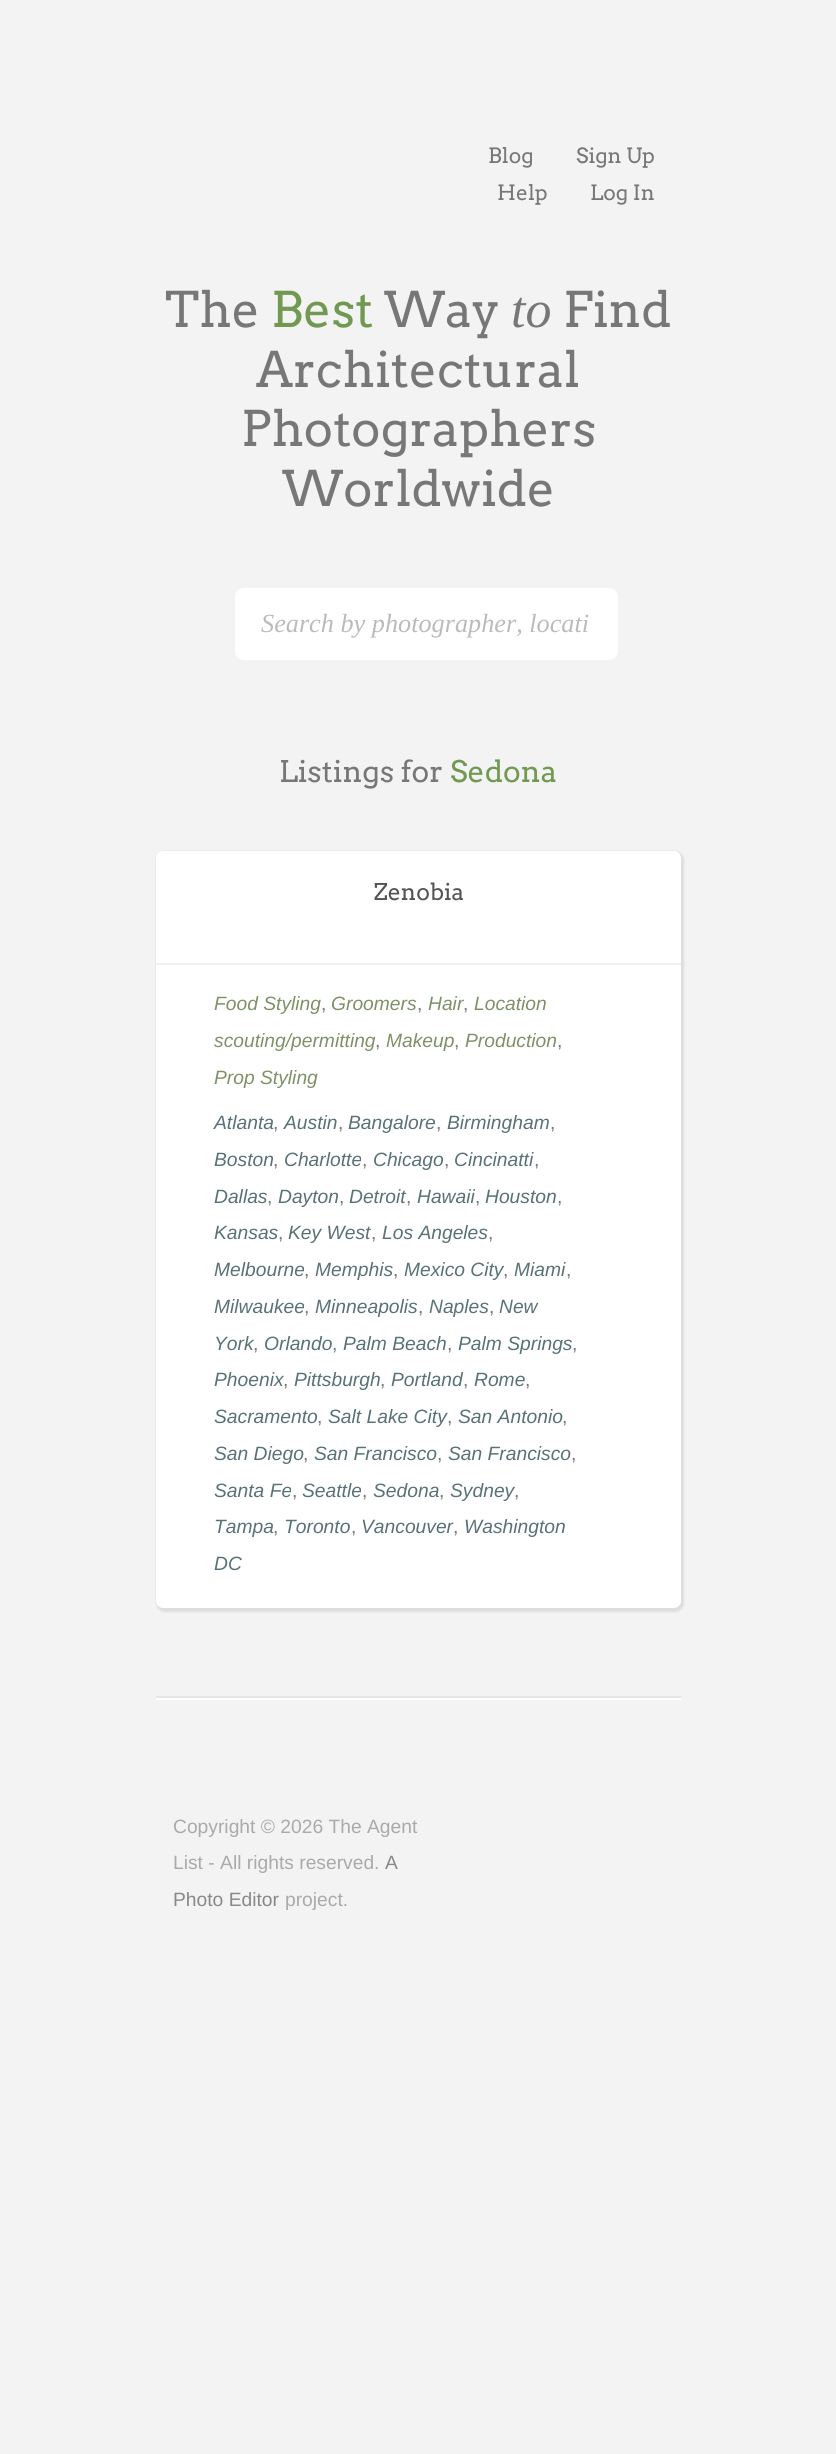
#include <cairo/cairo.h>
#include <math.h>
#include <stddef.h>


static void rounded_rect(cairo_t *cr, double x, double y, double w, double h, double r) {
  cairo_new_sub_path(cr);
  cairo_arc(cr, x + w - r, y + h - r, r, 0, M_PI / 2);
  cairo_arc(cr, x + r, y + h - r, r, M_PI / 2, M_PI);
  cairo_arc(cr, x + r, y + r, r, M_PI, 1.5 * M_PI);
  cairo_arc(cr, x + w - r, y + r, r, 1.5 * M_PI, 2 * M_PI);
  cairo_close_path(cr);
}

static void draw_shadow(cairo_t *cr, double x, double y, double w, double h, double r, double blur, double alpha) {
  cairo_push_group_with_content(cr, CAIRO_CONTENT_ALPHA);
  cairo_set_operator(cr, CAIRO_OPERATOR_SOURCE);
  for (int i = 15; i >= -15 && fmin(w, h) + blur * i / 3 > 0; i -= 2) {
    double e = blur * i / 6;
    cairo_set_source_rgba(cr, 0, 0, 0, alpha * erfc((i - 1) / 8.5) / 2);
    rounded_rect(cr, x - e, y - e, w + 2 * e, h + 2 * e, fmax(0, fmin(r + e + blur * .6, fmin(w, h) / 2 + e)));
    cairo_fill(cr);
  }
  cairo_pattern_t *soft = cairo_pop_group(cr);
  cairo_mask(cr, soft);
  cairo_pattern_destroy(soft);
}

static void draw(cairo_t *cr) {
  cairo_set_source_rgb(cr, 243 / 255.0, 243 / 255.0, 243 / 255.0);
  cairo_paint(cr);
  cairo_set_source_rgb(cr, 1, 1, 1);
  rounded_rect(cr, 235, 588, 383, 72, 9);
  cairo_fill(cr);
  cairo_set_source_rgb(cr, 221 / 255.0, 221 / 255.0, 221 / 255.0);
  draw_shadow(cr, 156, 851, 528, 761, 9, 1, 1);
  cairo_set_source_rgb(cr, 1, 1, 1);
  rounded_rect(cr, 156, 851, 525, 757, 7);
  cairo_fill(cr);
  cairo_set_source_rgb(cr, 240 / 255.0, 240 / 255.0, 240 / 255.0);
  cairo_rectangle(cr, 156, 963, 525, 2);
  cairo_fill(cr);
  cairo_set_source_rgb(cr, 1, 1, 1);
  cairo_rectangle(cr, 156, 1698, 525, 2);
  cairo_fill(cr);
  cairo_set_source_rgb(cr, 229 / 255.0, 229 / 255.0, 229 / 255.0);
  cairo_rectangle(cr, 156, 1696, 525, 2);
  cairo_fill(cr);
  cairo_select_font_face(cr, "Arvo", CAIRO_FONT_SLANT_NORMAL, CAIRO_FONT_WEIGHT_NORMAL);
  cairo_set_font_size(cr, 21);
  cairo_set_source_rgb(cr, 119 / 255.0, 119 / 255.0, 119 / 255.0);
  cairo_move_to(cr, 488, 163);
  cairo_show_text(cr, "Blog");
  cairo_move_to(cr, 576, 163);
  cairo_show_text(cr, "Sign Up");
  cairo_move_to(cr, 497, 200);
  cairo_show_text(cr, "Help");
  cairo_move_to(cr, 590, 200);
  cairo_show_text(cr, "Log In");
  cairo_set_font_size(cr, 49);
  cairo_move_to(cr, 165, 327);
  cairo_show_text(cr, "The");
  cairo_set_source_rgb(cr, 113 / 255.0, 153 / 255.0, 82 / 255.0);
  cairo_move_to(cr, 271, 327);
  cairo_show_text(cr, "Best");
  cairo_set_source_rgb(cr, 119 / 255.0, 119 / 255.0, 119 / 255.0);
  cairo_move_to(cr, 384, 327);
  cairo_show_text(cr, "Way");
  cairo_select_font_face(cr, "Liberation Serif", CAIRO_FONT_SLANT_ITALIC, CAIRO_FONT_WEIGHT_NORMAL);
  cairo_set_font_size(cr, 52);
  cairo_move_to(cr, 511, 327);
  cairo_show_text(cr, "to");
  cairo_select_font_face(cr, "Arvo", CAIRO_FONT_SLANT_NORMAL, CAIRO_FONT_WEIGHT_NORMAL);
  cairo_set_font_size(cr, 49);
  cairo_move_to(cr, 563, 327);
  cairo_show_text(cr, "Find");
  cairo_move_to(cr, 256, 387);
  cairo_show_text(cr, "Architectural");
  cairo_move_to(cr, 241, 446);
  cairo_show_text(cr, "Photographers");
  cairo_move_to(cr, 282, 506);
  cairo_show_text(cr, "Worldwide");
  cairo_select_font_face(cr, "Liberation Serif", CAIRO_FONT_SLANT_ITALIC, CAIRO_FONT_WEIGHT_NORMAL);
  cairo_set_font_size(cr, 26.25);
  cairo_set_source_rgb(cr, 187 / 255.0, 187 / 255.0, 187 / 255.0);
  cairo_move_to(cr, 261, 632);
  cairo_show_text(cr, "Search by photographer, locati");
  cairo_select_font_face(cr, "Arvo", CAIRO_FONT_SLANT_NORMAL, CAIRO_FONT_WEIGHT_NORMAL);
  cairo_set_font_size(cr, 29.75);
  cairo_set_source_rgb(cr, 119 / 255.0, 119 / 255.0, 119 / 255.0);
  cairo_move_to(cr, 279, 782);
  cairo_show_text(cr, "Listings for");
  cairo_set_source_rgb(cr, 113 / 255.0, 153 / 255.0, 82 / 255.0);
  cairo_move_to(cr, 450, 782);
  cairo_show_text(cr, "Sedona");
  cairo_set_font_size(cr, 23);
  cairo_set_source_rgb(cr, 84 / 255.0, 84 / 255.0, 84 / 255.0);
  cairo_move_to(cr, 374, 900);
  cairo_show_text(cr, "Zenobia");
  cairo_select_font_face(cr, "Liberation Sans", CAIRO_FONT_SLANT_ITALIC, CAIRO_FONT_WEIGHT_NORMAL);
  cairo_set_font_size(cr, 19.25);
  cairo_set_source_rgb(cr, 125 / 255.0, 146 / 255.0, 103 / 255.0);
  cairo_move_to(cr, 214, 1010);
  cairo_show_text(cr, "Food Styling");
  cairo_select_font_face(cr, "Liberation Sans", CAIRO_FONT_SLANT_NORMAL, CAIRO_FONT_WEIGHT_NORMAL);
  cairo_set_source_rgb(cr, 119 / 255.0, 119 / 255.0, 119 / 255.0);
  cairo_move_to(cr, 321, 1010);
  cairo_show_text(cr, ",");
  cairo_select_font_face(cr, "Liberation Sans", CAIRO_FONT_SLANT_ITALIC, CAIRO_FONT_WEIGHT_NORMAL);
  cairo_set_source_rgb(cr, 125 / 255.0, 146 / 255.0, 103 / 255.0);
  cairo_move_to(cr, 331, 1010);
  cairo_show_text(cr, "Groomers");
  cairo_select_font_face(cr, "Liberation Sans", CAIRO_FONT_SLANT_NORMAL, CAIRO_FONT_WEIGHT_NORMAL);
  cairo_set_source_rgb(cr, 119 / 255.0, 119 / 255.0, 119 / 255.0);
  cairo_move_to(cr, 417, 1010);
  cairo_show_text(cr, ",");
  cairo_select_font_face(cr, "Liberation Sans", CAIRO_FONT_SLANT_ITALIC, CAIRO_FONT_WEIGHT_NORMAL);
  cairo_set_source_rgb(cr, 125 / 255.0, 146 / 255.0, 103 / 255.0);
  cairo_move_to(cr, 428, 1010);
  cairo_show_text(cr, "Hair");
  cairo_select_font_face(cr, "Liberation Sans", CAIRO_FONT_SLANT_NORMAL, CAIRO_FONT_WEIGHT_NORMAL);
  cairo_set_source_rgb(cr, 119 / 255.0, 119 / 255.0, 119 / 255.0);
  cairo_move_to(cr, 463, 1010);
  cairo_show_text(cr, ",");
  cairo_select_font_face(cr, "Liberation Sans", CAIRO_FONT_SLANT_ITALIC, CAIRO_FONT_WEIGHT_NORMAL);
  cairo_set_source_rgb(cr, 125 / 255.0, 146 / 255.0, 103 / 255.0);
  cairo_move_to(cr, 474, 1010);
  cairo_show_text(cr, "Location");
  cairo_move_to(cr, 214, 1047);
  cairo_show_text(cr, "scouting/permitting");
  cairo_select_font_face(cr, "Liberation Sans", CAIRO_FONT_SLANT_NORMAL, CAIRO_FONT_WEIGHT_NORMAL);
  cairo_set_source_rgb(cr, 119 / 255.0, 119 / 255.0, 119 / 255.0);
  cairo_move_to(cr, 375, 1047);
  cairo_show_text(cr, ",");
  cairo_select_font_face(cr, "Liberation Sans", CAIRO_FONT_SLANT_ITALIC, CAIRO_FONT_WEIGHT_NORMAL);
  cairo_set_source_rgb(cr, 125 / 255.0, 146 / 255.0, 103 / 255.0);
  cairo_move_to(cr, 386, 1047);
  cairo_show_text(cr, "Makeup");
  cairo_select_font_face(cr, "Liberation Sans", CAIRO_FONT_SLANT_NORMAL, CAIRO_FONT_WEIGHT_NORMAL);
  cairo_set_source_rgb(cr, 119 / 255.0, 119 / 255.0, 119 / 255.0);
  cairo_move_to(cr, 454, 1047);
  cairo_show_text(cr, ",");
  cairo_select_font_face(cr, "Liberation Sans", CAIRO_FONT_SLANT_ITALIC, CAIRO_FONT_WEIGHT_NORMAL);
  cairo_set_source_rgb(cr, 125 / 255.0, 146 / 255.0, 103 / 255.0);
  cairo_move_to(cr, 465, 1047);
  cairo_show_text(cr, "Production");
  cairo_select_font_face(cr, "Liberation Sans", CAIRO_FONT_SLANT_NORMAL, CAIRO_FONT_WEIGHT_NORMAL);
  cairo_set_source_rgb(cr, 119 / 255.0, 119 / 255.0, 119 / 255.0);
  cairo_move_to(cr, 557, 1047);
  cairo_show_text(cr, ",");
  cairo_select_font_face(cr, "Liberation Sans", CAIRO_FONT_SLANT_ITALIC, CAIRO_FONT_WEIGHT_NORMAL);
  cairo_set_source_rgb(cr, 125 / 255.0, 146 / 255.0, 103 / 255.0);
  cairo_move_to(cr, 214, 1084);
  cairo_show_text(cr, "Prop Styling");
  cairo_set_source_rgb(cr, 89 / 255.0, 114 / 255.0, 118 / 255.0);
  cairo_move_to(cr, 214, 1129);
  cairo_show_text(cr, "Atlanta");
  cairo_select_font_face(cr, "Liberation Sans", CAIRO_FONT_SLANT_NORMAL, CAIRO_FONT_WEIGHT_NORMAL);
  cairo_set_source_rgb(cr, 119 / 255.0, 119 / 255.0, 119 / 255.0);
  cairo_move_to(cr, 273, 1129);
  cairo_show_text(cr, ",");
  cairo_select_font_face(cr, "Liberation Sans", CAIRO_FONT_SLANT_ITALIC, CAIRO_FONT_WEIGHT_NORMAL);
  cairo_set_source_rgb(cr, 89 / 255.0, 114 / 255.0, 118 / 255.0);
  cairo_move_to(cr, 284, 1129);
  cairo_show_text(cr, "Austin");
  cairo_select_font_face(cr, "Liberation Sans", CAIRO_FONT_SLANT_NORMAL, CAIRO_FONT_WEIGHT_NORMAL);
  cairo_set_source_rgb(cr, 119 / 255.0, 119 / 255.0, 119 / 255.0);
  cairo_move_to(cr, 338, 1129);
  cairo_show_text(cr, ",");
  cairo_select_font_face(cr, "Liberation Sans", CAIRO_FONT_SLANT_ITALIC, CAIRO_FONT_WEIGHT_NORMAL);
  cairo_set_source_rgb(cr, 89 / 255.0, 114 / 255.0, 118 / 255.0);
  cairo_move_to(cr, 348, 1129);
  cairo_show_text(cr, "Bangalore");
  cairo_select_font_face(cr, "Liberation Sans", CAIRO_FONT_SLANT_NORMAL, CAIRO_FONT_WEIGHT_NORMAL);
  cairo_set_source_rgb(cr, 119 / 255.0, 119 / 255.0, 119 / 255.0);
  cairo_move_to(cr, 436, 1129);
  cairo_show_text(cr, ",");
  cairo_select_font_face(cr, "Liberation Sans", CAIRO_FONT_SLANT_ITALIC, CAIRO_FONT_WEIGHT_NORMAL);
  cairo_set_source_rgb(cr, 89 / 255.0, 114 / 255.0, 118 / 255.0);
  cairo_move_to(cr, 447, 1129);
  cairo_show_text(cr, "Birmingham");
  cairo_select_font_face(cr, "Liberation Sans", CAIRO_FONT_SLANT_NORMAL, CAIRO_FONT_WEIGHT_NORMAL);
  cairo_set_source_rgb(cr, 119 / 255.0, 119 / 255.0, 119 / 255.0);
  cairo_move_to(cr, 550, 1129);
  cairo_show_text(cr, ",");
  cairo_select_font_face(cr, "Liberation Sans", CAIRO_FONT_SLANT_ITALIC, CAIRO_FONT_WEIGHT_NORMAL);
  cairo_set_source_rgb(cr, 89 / 255.0, 114 / 255.0, 118 / 255.0);
  cairo_move_to(cr, 214, 1166);
  cairo_show_text(cr, "Boston");
  cairo_select_font_face(cr, "Liberation Sans", CAIRO_FONT_SLANT_NORMAL, CAIRO_FONT_WEIGHT_NORMAL);
  cairo_set_source_rgb(cr, 119 / 255.0, 119 / 255.0, 119 / 255.0);
  cairo_move_to(cr, 273, 1166);
  cairo_show_text(cr, ",");
  cairo_select_font_face(cr, "Liberation Sans", CAIRO_FONT_SLANT_ITALIC, CAIRO_FONT_WEIGHT_NORMAL);
  cairo_set_source_rgb(cr, 89 / 255.0, 114 / 255.0, 118 / 255.0);
  cairo_move_to(cr, 284, 1166);
  cairo_show_text(cr, "Charlotte");
  cairo_select_font_face(cr, "Liberation Sans", CAIRO_FONT_SLANT_NORMAL, CAIRO_FONT_WEIGHT_NORMAL);
  cairo_set_source_rgb(cr, 119 / 255.0, 119 / 255.0, 119 / 255.0);
  cairo_move_to(cr, 362, 1166);
  cairo_show_text(cr, ",");
  cairo_select_font_face(cr, "Liberation Sans", CAIRO_FONT_SLANT_ITALIC, CAIRO_FONT_WEIGHT_NORMAL);
  cairo_set_source_rgb(cr, 89 / 255.0, 114 / 255.0, 118 / 255.0);
  cairo_move_to(cr, 373, 1166);
  cairo_show_text(cr, "Chicago");
  cairo_select_font_face(cr, "Liberation Sans", CAIRO_FONT_SLANT_NORMAL, CAIRO_FONT_WEIGHT_NORMAL);
  cairo_set_source_rgb(cr, 119 / 255.0, 119 / 255.0, 119 / 255.0);
  cairo_move_to(cr, 444, 1166);
  cairo_show_text(cr, ",");
  cairo_select_font_face(cr, "Liberation Sans", CAIRO_FONT_SLANT_ITALIC, CAIRO_FONT_WEIGHT_NORMAL);
  cairo_set_source_rgb(cr, 89 / 255.0, 114 / 255.0, 118 / 255.0);
  cairo_move_to(cr, 454, 1166);
  cairo_show_text(cr, "Cincinatti");
  cairo_select_font_face(cr, "Liberation Sans", CAIRO_FONT_SLANT_NORMAL, CAIRO_FONT_WEIGHT_NORMAL);
  cairo_set_source_rgb(cr, 119 / 255.0, 119 / 255.0, 119 / 255.0);
  cairo_move_to(cr, 534, 1166);
  cairo_show_text(cr, ",");
  cairo_select_font_face(cr, "Liberation Sans", CAIRO_FONT_SLANT_ITALIC, CAIRO_FONT_WEIGHT_NORMAL);
  cairo_set_source_rgb(cr, 89 / 255.0, 114 / 255.0, 118 / 255.0);
  cairo_move_to(cr, 214, 1203);
  cairo_show_text(cr, "Dallas");
  cairo_select_font_face(cr, "Liberation Sans", CAIRO_FONT_SLANT_NORMAL, CAIRO_FONT_WEIGHT_NORMAL);
  cairo_set_source_rgb(cr, 119 / 255.0, 119 / 255.0, 119 / 255.0);
  cairo_move_to(cr, 267, 1203);
  cairo_show_text(cr, ",");
  cairo_select_font_face(cr, "Liberation Sans", CAIRO_FONT_SLANT_ITALIC, CAIRO_FONT_WEIGHT_NORMAL);
  cairo_set_source_rgb(cr, 89 / 255.0, 114 / 255.0, 118 / 255.0);
  cairo_move_to(cr, 278, 1203);
  cairo_show_text(cr, "Dayton");
  cairo_select_font_face(cr, "Liberation Sans", CAIRO_FONT_SLANT_NORMAL, CAIRO_FONT_WEIGHT_NORMAL);
  cairo_set_source_rgb(cr, 119 / 255.0, 119 / 255.0, 119 / 255.0);
  cairo_move_to(cr, 339, 1203);
  cairo_show_text(cr, ",");
  cairo_select_font_face(cr, "Liberation Sans", CAIRO_FONT_SLANT_ITALIC, CAIRO_FONT_WEIGHT_NORMAL);
  cairo_set_source_rgb(cr, 89 / 255.0, 114 / 255.0, 118 / 255.0);
  cairo_move_to(cr, 349, 1203);
  cairo_show_text(cr, "Detroit");
  cairo_select_font_face(cr, "Liberation Sans", CAIRO_FONT_SLANT_NORMAL, CAIRO_FONT_WEIGHT_NORMAL);
  cairo_set_source_rgb(cr, 119 / 255.0, 119 / 255.0, 119 / 255.0);
  cairo_move_to(cr, 406, 1203);
  cairo_show_text(cr, ",");
  cairo_select_font_face(cr, "Liberation Sans", CAIRO_FONT_SLANT_ITALIC, CAIRO_FONT_WEIGHT_NORMAL);
  cairo_set_source_rgb(cr, 89 / 255.0, 114 / 255.0, 118 / 255.0);
  cairo_move_to(cr, 417, 1203);
  cairo_show_text(cr, "Hawaii");
  cairo_select_font_face(cr, "Liberation Sans", CAIRO_FONT_SLANT_NORMAL, CAIRO_FONT_WEIGHT_NORMAL);
  cairo_set_source_rgb(cr, 119 / 255.0, 119 / 255.0, 119 / 255.0);
  cairo_move_to(cr, 475, 1203);
  cairo_show_text(cr, ",");
  cairo_select_font_face(cr, "Liberation Sans", CAIRO_FONT_SLANT_ITALIC, CAIRO_FONT_WEIGHT_NORMAL);
  cairo_set_source_rgb(cr, 89 / 255.0, 114 / 255.0, 118 / 255.0);
  cairo_move_to(cr, 485, 1203);
  cairo_show_text(cr, "Houston");
  cairo_select_font_face(cr, "Liberation Sans", CAIRO_FONT_SLANT_NORMAL, CAIRO_FONT_WEIGHT_NORMAL);
  cairo_set_source_rgb(cr, 119 / 255.0, 119 / 255.0, 119 / 255.0);
  cairo_move_to(cr, 557, 1203);
  cairo_show_text(cr, ",");
  cairo_select_font_face(cr, "Liberation Sans", CAIRO_FONT_SLANT_ITALIC, CAIRO_FONT_WEIGHT_NORMAL);
  cairo_set_source_rgb(cr, 89 / 255.0, 114 / 255.0, 118 / 255.0);
  cairo_move_to(cr, 214, 1239);
  cairo_show_text(cr, "Kansas");
  cairo_select_font_face(cr, "Liberation Sans", CAIRO_FONT_SLANT_NORMAL, CAIRO_FONT_WEIGHT_NORMAL);
  cairo_set_source_rgb(cr, 119 / 255.0, 119 / 255.0, 119 / 255.0);
  cairo_move_to(cr, 278, 1239);
  cairo_show_text(cr, ",");
  cairo_select_font_face(cr, "Liberation Sans", CAIRO_FONT_SLANT_ITALIC, CAIRO_FONT_WEIGHT_NORMAL);
  cairo_set_source_rgb(cr, 89 / 255.0, 114 / 255.0, 118 / 255.0);
  cairo_move_to(cr, 288, 1239);
  cairo_show_text(cr, "Key West");
  cairo_select_font_face(cr, "Liberation Sans", CAIRO_FONT_SLANT_NORMAL, CAIRO_FONT_WEIGHT_NORMAL);
  cairo_set_source_rgb(cr, 119 / 255.0, 119 / 255.0, 119 / 255.0);
  cairo_move_to(cr, 371, 1239);
  cairo_show_text(cr, ",");
  cairo_select_font_face(cr, "Liberation Sans", CAIRO_FONT_SLANT_ITALIC, CAIRO_FONT_WEIGHT_NORMAL);
  cairo_set_source_rgb(cr, 89 / 255.0, 114 / 255.0, 118 / 255.0);
  cairo_move_to(cr, 382, 1239);
  cairo_show_text(cr, "Los Angeles");
  cairo_select_font_face(cr, "Liberation Sans", CAIRO_FONT_SLANT_NORMAL, CAIRO_FONT_WEIGHT_NORMAL);
  cairo_set_source_rgb(cr, 119 / 255.0, 119 / 255.0, 119 / 255.0);
  cairo_move_to(cr, 488, 1239);
  cairo_show_text(cr, ",");
  cairo_select_font_face(cr, "Liberation Sans", CAIRO_FONT_SLANT_ITALIC, CAIRO_FONT_WEIGHT_NORMAL);
  cairo_set_source_rgb(cr, 89 / 255.0, 114 / 255.0, 118 / 255.0);
  cairo_move_to(cr, 214, 1276);
  cairo_show_text(cr, "Melbourne");
  cairo_select_font_face(cr, "Liberation Sans", CAIRO_FONT_SLANT_NORMAL, CAIRO_FONT_WEIGHT_NORMAL);
  cairo_set_source_rgb(cr, 119 / 255.0, 119 / 255.0, 119 / 255.0);
  cairo_move_to(cr, 304, 1276);
  cairo_show_text(cr, ",");
  cairo_select_font_face(cr, "Liberation Sans", CAIRO_FONT_SLANT_ITALIC, CAIRO_FONT_WEIGHT_NORMAL);
  cairo_set_source_rgb(cr, 89 / 255.0, 114 / 255.0, 118 / 255.0);
  cairo_move_to(cr, 315, 1276);
  cairo_show_text(cr, "Memphis");
  cairo_select_font_face(cr, "Liberation Sans", CAIRO_FONT_SLANT_NORMAL, CAIRO_FONT_WEIGHT_NORMAL);
  cairo_set_source_rgb(cr, 119 / 255.0, 119 / 255.0, 119 / 255.0);
  cairo_move_to(cr, 393, 1276);
  cairo_show_text(cr, ",");
  cairo_select_font_face(cr, "Liberation Sans", CAIRO_FONT_SLANT_ITALIC, CAIRO_FONT_WEIGHT_NORMAL);
  cairo_set_source_rgb(cr, 89 / 255.0, 114 / 255.0, 118 / 255.0);
  cairo_move_to(cr, 404, 1276);
  cairo_show_text(cr, "Mexico City");
  cairo_select_font_face(cr, "Liberation Sans", CAIRO_FONT_SLANT_NORMAL, CAIRO_FONT_WEIGHT_NORMAL);
  cairo_set_source_rgb(cr, 119 / 255.0, 119 / 255.0, 119 / 255.0);
  cairo_move_to(cr, 503, 1276);
  cairo_show_text(cr, ",");
  cairo_select_font_face(cr, "Liberation Sans", CAIRO_FONT_SLANT_ITALIC, CAIRO_FONT_WEIGHT_NORMAL);
  cairo_set_source_rgb(cr, 89 / 255.0, 114 / 255.0, 118 / 255.0);
  cairo_move_to(cr, 514, 1276);
  cairo_show_text(cr, "Miami");
  cairo_select_font_face(cr, "Liberation Sans", CAIRO_FONT_SLANT_NORMAL, CAIRO_FONT_WEIGHT_NORMAL);
  cairo_set_source_rgb(cr, 119 / 255.0, 119 / 255.0, 119 / 255.0);
  cairo_move_to(cr, 566, 1276);
  cairo_show_text(cr, ",");
  cairo_select_font_face(cr, "Liberation Sans", CAIRO_FONT_SLANT_ITALIC, CAIRO_FONT_WEIGHT_NORMAL);
  cairo_set_source_rgb(cr, 89 / 255.0, 114 / 255.0, 118 / 255.0);
  cairo_move_to(cr, 214, 1313);
  cairo_show_text(cr, "Milwaukee");
  cairo_select_font_face(cr, "Liberation Sans", CAIRO_FONT_SLANT_NORMAL, CAIRO_FONT_WEIGHT_NORMAL);
  cairo_set_source_rgb(cr, 119 / 255.0, 119 / 255.0, 119 / 255.0);
  cairo_move_to(cr, 304, 1313);
  cairo_show_text(cr, ",");
  cairo_select_font_face(cr, "Liberation Sans", CAIRO_FONT_SLANT_ITALIC, CAIRO_FONT_WEIGHT_NORMAL);
  cairo_set_source_rgb(cr, 89 / 255.0, 114 / 255.0, 118 / 255.0);
  cairo_move_to(cr, 315, 1313);
  cairo_show_text(cr, "Minneapolis");
  cairo_select_font_face(cr, "Liberation Sans", CAIRO_FONT_SLANT_NORMAL, CAIRO_FONT_WEIGHT_NORMAL);
  cairo_set_source_rgb(cr, 119 / 255.0, 119 / 255.0, 119 / 255.0);
  cairo_move_to(cr, 418, 1313);
  cairo_show_text(cr, ",");
  cairo_select_font_face(cr, "Liberation Sans", CAIRO_FONT_SLANT_ITALIC, CAIRO_FONT_WEIGHT_NORMAL);
  cairo_set_source_rgb(cr, 89 / 255.0, 114 / 255.0, 118 / 255.0);
  cairo_move_to(cr, 429, 1313);
  cairo_show_text(cr, "Naples");
  cairo_select_font_face(cr, "Liberation Sans", CAIRO_FONT_SLANT_NORMAL, CAIRO_FONT_WEIGHT_NORMAL);
  cairo_set_source_rgb(cr, 119 / 255.0, 119 / 255.0, 119 / 255.0);
  cairo_move_to(cr, 489, 1313);
  cairo_show_text(cr, ",");
  cairo_select_font_face(cr, "Liberation Sans", CAIRO_FONT_SLANT_ITALIC, CAIRO_FONT_WEIGHT_NORMAL);
  cairo_set_source_rgb(cr, 89 / 255.0, 114 / 255.0, 118 / 255.0);
  cairo_move_to(cr, 499, 1313);
  cairo_show_text(cr, "New");
  cairo_move_to(cr, 214, 1350);
  cairo_show_text(cr, "York");
  cairo_select_font_face(cr, "Liberation Sans", CAIRO_FONT_SLANT_NORMAL, CAIRO_FONT_WEIGHT_NORMAL);
  cairo_set_source_rgb(cr, 119 / 255.0, 119 / 255.0, 119 / 255.0);
  cairo_move_to(cr, 253, 1350);
  cairo_show_text(cr, ",");
  cairo_select_font_face(cr, "Liberation Sans", CAIRO_FONT_SLANT_ITALIC, CAIRO_FONT_WEIGHT_NORMAL);
  cairo_set_source_rgb(cr, 89 / 255.0, 114 / 255.0, 118 / 255.0);
  cairo_move_to(cr, 264, 1350);
  cairo_show_text(cr, "Orlando");
  cairo_select_font_face(cr, "Liberation Sans", CAIRO_FONT_SLANT_NORMAL, CAIRO_FONT_WEIGHT_NORMAL);
  cairo_set_source_rgb(cr, 119 / 255.0, 119 / 255.0, 119 / 255.0);
  cairo_move_to(cr, 332, 1350);
  cairo_show_text(cr, ",");
  cairo_select_font_face(cr, "Liberation Sans", CAIRO_FONT_SLANT_ITALIC, CAIRO_FONT_WEIGHT_NORMAL);
  cairo_set_source_rgb(cr, 89 / 255.0, 114 / 255.0, 118 / 255.0);
  cairo_move_to(cr, 343, 1350);
  cairo_show_text(cr, "Palm Beach");
  cairo_select_font_face(cr, "Liberation Sans", CAIRO_FONT_SLANT_NORMAL, CAIRO_FONT_WEIGHT_NORMAL);
  cairo_set_source_rgb(cr, 119 / 255.0, 119 / 255.0, 119 / 255.0);
  cairo_move_to(cr, 447, 1350);
  cairo_show_text(cr, ",");
  cairo_select_font_face(cr, "Liberation Sans", CAIRO_FONT_SLANT_ITALIC, CAIRO_FONT_WEIGHT_NORMAL);
  cairo_set_source_rgb(cr, 89 / 255.0, 114 / 255.0, 118 / 255.0);
  cairo_move_to(cr, 458, 1350);
  cairo_show_text(cr, "Palm Springs");
  cairo_select_font_face(cr, "Liberation Sans", CAIRO_FONT_SLANT_NORMAL, CAIRO_FONT_WEIGHT_NORMAL);
  cairo_set_source_rgb(cr, 119 / 255.0, 119 / 255.0, 119 / 255.0);
  cairo_move_to(cr, 572, 1350);
  cairo_show_text(cr, ",");
  cairo_select_font_face(cr, "Liberation Sans", CAIRO_FONT_SLANT_ITALIC, CAIRO_FONT_WEIGHT_NORMAL);
  cairo_set_source_rgb(cr, 89 / 255.0, 114 / 255.0, 118 / 255.0);
  cairo_move_to(cr, 214, 1386);
  cairo_show_text(cr, "Phoenix");
  cairo_select_font_face(cr, "Liberation Sans", CAIRO_FONT_SLANT_NORMAL, CAIRO_FONT_WEIGHT_NORMAL);
  cairo_set_source_rgb(cr, 119 / 255.0, 119 / 255.0, 119 / 255.0);
  cairo_move_to(cr, 283, 1386);
  cairo_show_text(cr, ",");
  cairo_select_font_face(cr, "Liberation Sans", CAIRO_FONT_SLANT_ITALIC, CAIRO_FONT_WEIGHT_NORMAL);
  cairo_set_source_rgb(cr, 89 / 255.0, 114 / 255.0, 118 / 255.0);
  cairo_move_to(cr, 294, 1386);
  cairo_show_text(cr, "Pittsburgh");
  cairo_select_font_face(cr, "Liberation Sans", CAIRO_FONT_SLANT_NORMAL, CAIRO_FONT_WEIGHT_NORMAL);
  cairo_set_source_rgb(cr, 119 / 255.0, 119 / 255.0, 119 / 255.0);
  cairo_move_to(cr, 380, 1386);
  cairo_show_text(cr, ",");
  cairo_select_font_face(cr, "Liberation Sans", CAIRO_FONT_SLANT_ITALIC, CAIRO_FONT_WEIGHT_NORMAL);
  cairo_set_source_rgb(cr, 89 / 255.0, 114 / 255.0, 118 / 255.0);
  cairo_move_to(cr, 391, 1386);
  cairo_show_text(cr, "Portland");
  cairo_select_font_face(cr, "Liberation Sans", CAIRO_FONT_SLANT_NORMAL, CAIRO_FONT_WEIGHT_NORMAL);
  cairo_set_source_rgb(cr, 119 / 255.0, 119 / 255.0, 119 / 255.0);
  cairo_move_to(cr, 463, 1386);
  cairo_show_text(cr, ",");
  cairo_select_font_face(cr, "Liberation Sans", CAIRO_FONT_SLANT_ITALIC, CAIRO_FONT_WEIGHT_NORMAL);
  cairo_set_source_rgb(cr, 89 / 255.0, 114 / 255.0, 118 / 255.0);
  cairo_move_to(cr, 474, 1386);
  cairo_show_text(cr, "Rome");
  cairo_select_font_face(cr, "Liberation Sans", CAIRO_FONT_SLANT_NORMAL, CAIRO_FONT_WEIGHT_NORMAL);
  cairo_set_source_rgb(cr, 119 / 255.0, 119 / 255.0, 119 / 255.0);
  cairo_move_to(cr, 525, 1386);
  cairo_show_text(cr, ",");
  cairo_select_font_face(cr, "Liberation Sans", CAIRO_FONT_SLANT_ITALIC, CAIRO_FONT_WEIGHT_NORMAL);
  cairo_set_source_rgb(cr, 89 / 255.0, 114 / 255.0, 118 / 255.0);
  cairo_move_to(cr, 214, 1423);
  cairo_show_text(cr, "Sacramento");
  cairo_select_font_face(cr, "Liberation Sans", CAIRO_FONT_SLANT_NORMAL, CAIRO_FONT_WEIGHT_NORMAL);
  cairo_set_source_rgb(cr, 119 / 255.0, 119 / 255.0, 119 / 255.0);
  cairo_move_to(cr, 317, 1423);
  cairo_show_text(cr, ",");
  cairo_select_font_face(cr, "Liberation Sans", CAIRO_FONT_SLANT_ITALIC, CAIRO_FONT_WEIGHT_NORMAL);
  cairo_set_source_rgb(cr, 89 / 255.0, 114 / 255.0, 118 / 255.0);
  cairo_move_to(cr, 328, 1423);
  cairo_show_text(cr, "Salt Lake City");
  cairo_select_font_face(cr, "Liberation Sans", CAIRO_FONT_SLANT_NORMAL, CAIRO_FONT_WEIGHT_NORMAL);
  cairo_set_source_rgb(cr, 119 / 255.0, 119 / 255.0, 119 / 255.0);
  cairo_move_to(cr, 447, 1423);
  cairo_show_text(cr, ",");
  cairo_select_font_face(cr, "Liberation Sans", CAIRO_FONT_SLANT_ITALIC, CAIRO_FONT_WEIGHT_NORMAL);
  cairo_set_source_rgb(cr, 89 / 255.0, 114 / 255.0, 118 / 255.0);
  cairo_move_to(cr, 458, 1423);
  cairo_show_text(cr, "San Antonio");
  cairo_select_font_face(cr, "Liberation Sans", CAIRO_FONT_SLANT_NORMAL, CAIRO_FONT_WEIGHT_NORMAL);
  cairo_set_source_rgb(cr, 119 / 255.0, 119 / 255.0, 119 / 255.0);
  cairo_move_to(cr, 562, 1423);
  cairo_show_text(cr, ",");
  cairo_select_font_face(cr, "Liberation Sans", CAIRO_FONT_SLANT_ITALIC, CAIRO_FONT_WEIGHT_NORMAL);
  cairo_set_source_rgb(cr, 89 / 255.0, 114 / 255.0, 118 / 255.0);
  cairo_move_to(cr, 214, 1460);
  cairo_show_text(cr, "San Diego");
  cairo_select_font_face(cr, "Liberation Sans", CAIRO_FONT_SLANT_NORMAL, CAIRO_FONT_WEIGHT_NORMAL);
  cairo_set_source_rgb(cr, 119 / 255.0, 119 / 255.0, 119 / 255.0);
  cairo_move_to(cr, 303, 1460);
  cairo_show_text(cr, ",");
  cairo_select_font_face(cr, "Liberation Sans", CAIRO_FONT_SLANT_ITALIC, CAIRO_FONT_WEIGHT_NORMAL);
  cairo_set_source_rgb(cr, 89 / 255.0, 114 / 255.0, 118 / 255.0);
  cairo_move_to(cr, 314, 1460);
  cairo_show_text(cr, "San Francisco");
  cairo_select_font_face(cr, "Liberation Sans", CAIRO_FONT_SLANT_NORMAL, CAIRO_FONT_WEIGHT_NORMAL);
  cairo_set_source_rgb(cr, 119 / 255.0, 119 / 255.0, 119 / 255.0);
  cairo_move_to(cr, 437, 1460);
  cairo_show_text(cr, ",");
  cairo_select_font_face(cr, "Liberation Sans", CAIRO_FONT_SLANT_ITALIC, CAIRO_FONT_WEIGHT_NORMAL);
  cairo_set_source_rgb(cr, 89 / 255.0, 114 / 255.0, 118 / 255.0);
  cairo_move_to(cr, 448, 1460);
  cairo_show_text(cr, "San Francisco");
  cairo_select_font_face(cr, "Liberation Sans", CAIRO_FONT_SLANT_NORMAL, CAIRO_FONT_WEIGHT_NORMAL);
  cairo_set_source_rgb(cr, 119 / 255.0, 119 / 255.0, 119 / 255.0);
  cairo_move_to(cr, 571, 1460);
  cairo_show_text(cr, ",");
  cairo_select_font_face(cr, "Liberation Sans", CAIRO_FONT_SLANT_ITALIC, CAIRO_FONT_WEIGHT_NORMAL);
  cairo_set_source_rgb(cr, 89 / 255.0, 114 / 255.0, 118 / 255.0);
  cairo_move_to(cr, 214, 1497);
  cairo_show_text(cr, "Santa Fe");
  cairo_select_font_face(cr, "Liberation Sans", CAIRO_FONT_SLANT_NORMAL, CAIRO_FONT_WEIGHT_NORMAL);
  cairo_set_source_rgb(cr, 119 / 255.0, 119 / 255.0, 119 / 255.0);
  cairo_move_to(cr, 292, 1497);
  cairo_show_text(cr, ",");
  cairo_select_font_face(cr, "Liberation Sans", CAIRO_FONT_SLANT_ITALIC, CAIRO_FONT_WEIGHT_NORMAL);
  cairo_set_source_rgb(cr, 89 / 255.0, 114 / 255.0, 118 / 255.0);
  cairo_move_to(cr, 302, 1497);
  cairo_show_text(cr, "Seattle");
  cairo_select_font_face(cr, "Liberation Sans", CAIRO_FONT_SLANT_NORMAL, CAIRO_FONT_WEIGHT_NORMAL);
  cairo_set_source_rgb(cr, 119 / 255.0, 119 / 255.0, 119 / 255.0);
  cairo_move_to(cr, 362, 1497);
  cairo_show_text(cr, ",");
  cairo_select_font_face(cr, "Liberation Sans", CAIRO_FONT_SLANT_ITALIC, CAIRO_FONT_WEIGHT_NORMAL);
  cairo_set_source_rgb(cr, 89 / 255.0, 114 / 255.0, 118 / 255.0);
  cairo_move_to(cr, 373, 1497);
  cairo_show_text(cr, "Sedona");
  cairo_select_font_face(cr, "Liberation Sans", CAIRO_FONT_SLANT_NORMAL, CAIRO_FONT_WEIGHT_NORMAL);
  cairo_set_source_rgb(cr, 119 / 255.0, 119 / 255.0, 119 / 255.0);
  cairo_move_to(cr, 439, 1497);
  cairo_show_text(cr, ",");
  cairo_select_font_face(cr, "Liberation Sans", CAIRO_FONT_SLANT_ITALIC, CAIRO_FONT_WEIGHT_NORMAL);
  cairo_set_source_rgb(cr, 89 / 255.0, 114 / 255.0, 118 / 255.0);
  cairo_move_to(cr, 450, 1497);
  cairo_show_text(cr, "Sydney");
  cairo_select_font_face(cr, "Liberation Sans", CAIRO_FONT_SLANT_NORMAL, CAIRO_FONT_WEIGHT_NORMAL);
  cairo_set_source_rgb(cr, 119 / 255.0, 119 / 255.0, 119 / 255.0);
  cairo_move_to(cr, 514, 1497);
  cairo_show_text(cr, ",");
  cairo_select_font_face(cr, "Liberation Sans", CAIRO_FONT_SLANT_ITALIC, CAIRO_FONT_WEIGHT_NORMAL);
  cairo_set_source_rgb(cr, 89 / 255.0, 114 / 255.0, 118 / 255.0);
  cairo_move_to(cr, 214, 1533);
  cairo_show_text(cr, "Tampa");
  cairo_select_font_face(cr, "Liberation Sans", CAIRO_FONT_SLANT_NORMAL, CAIRO_FONT_WEIGHT_NORMAL);
  cairo_set_source_rgb(cr, 119 / 255.0, 119 / 255.0, 119 / 255.0);
  cairo_move_to(cr, 273, 1533);
  cairo_show_text(cr, ",");
  cairo_select_font_face(cr, "Liberation Sans", CAIRO_FONT_SLANT_ITALIC, CAIRO_FONT_WEIGHT_NORMAL);
  cairo_set_source_rgb(cr, 89 / 255.0, 114 / 255.0, 118 / 255.0);
  cairo_move_to(cr, 284, 1533);
  cairo_show_text(cr, "Toronto");
  cairo_select_font_face(cr, "Liberation Sans", CAIRO_FONT_SLANT_NORMAL, CAIRO_FONT_WEIGHT_NORMAL);
  cairo_set_source_rgb(cr, 119 / 255.0, 119 / 255.0, 119 / 255.0);
  cairo_move_to(cr, 351, 1533);
  cairo_show_text(cr, ",");
  cairo_select_font_face(cr, "Liberation Sans", CAIRO_FONT_SLANT_ITALIC, CAIRO_FONT_WEIGHT_NORMAL);
  cairo_set_source_rgb(cr, 89 / 255.0, 114 / 255.0, 118 / 255.0);
  cairo_move_to(cr, 361, 1533);
  cairo_show_text(cr, "Vancouver");
  cairo_select_font_face(cr, "Liberation Sans", CAIRO_FONT_SLANT_NORMAL, CAIRO_FONT_WEIGHT_NORMAL);
  cairo_set_source_rgb(cr, 119 / 255.0, 119 / 255.0, 119 / 255.0);
  cairo_move_to(cr, 453, 1533);
  cairo_show_text(cr, ",");
  cairo_select_font_face(cr, "Liberation Sans", CAIRO_FONT_SLANT_ITALIC, CAIRO_FONT_WEIGHT_NORMAL);
  cairo_set_source_rgb(cr, 89 / 255.0, 114 / 255.0, 118 / 255.0);
  cairo_move_to(cr, 464, 1533);
  cairo_show_text(cr, "Washington");
  cairo_move_to(cr, 214, 1570);
  cairo_show_text(cr, "DC");
  cairo_select_font_face(cr, "Liberation Sans", CAIRO_FONT_SLANT_NORMAL, CAIRO_FONT_WEIGHT_NORMAL);
  cairo_set_source_rgb(cr, 170 / 255.0, 170 / 255.0, 170 / 255.0);
  cairo_move_to(cr, 173, 1833);
  cairo_show_text(cr, "Copyright © 2026 The Agent");
  cairo_move_to(cr, 173, 1869);
  cairo_show_text(cr, "List - All rights reserved.");
  cairo_set_source_rgb(cr, 136 / 255.0, 136 / 255.0, 136 / 255.0);
  cairo_move_to(cr, 385, 1869);
  cairo_show_text(cr, "A");
  cairo_move_to(cr, 173, 1906);
  cairo_show_text(cr, "Photo Editor");
  cairo_set_source_rgb(cr, 170 / 255.0, 170 / 255.0, 170 / 255.0);
  cairo_move_to(cr, 285, 1906);
  cairo_show_text(cr, "project.");
}

int main(void) {
  cairo_surface_t *surface = cairo_image_surface_create(CAIRO_FORMAT_RGB24, 836, 2454);
  cairo_t *cr = cairo_create(surface);
  cairo_font_options_t *options = cairo_font_options_create();
  cairo_font_options_set_hint_metrics(options, CAIRO_HINT_METRICS_OFF);
  cairo_font_options_set_hint_style(options, CAIRO_HINT_STYLE_NONE);
  cairo_set_font_options(cr, options);
  cairo_set_miter_limit(cr, 4);
  draw(cr);
  cairo_surface_write_to_png(surface, "out.png");
  cairo_font_options_destroy(options);
  cairo_destroy(cr);
  cairo_surface_destroy(surface);
  return 0;
}
